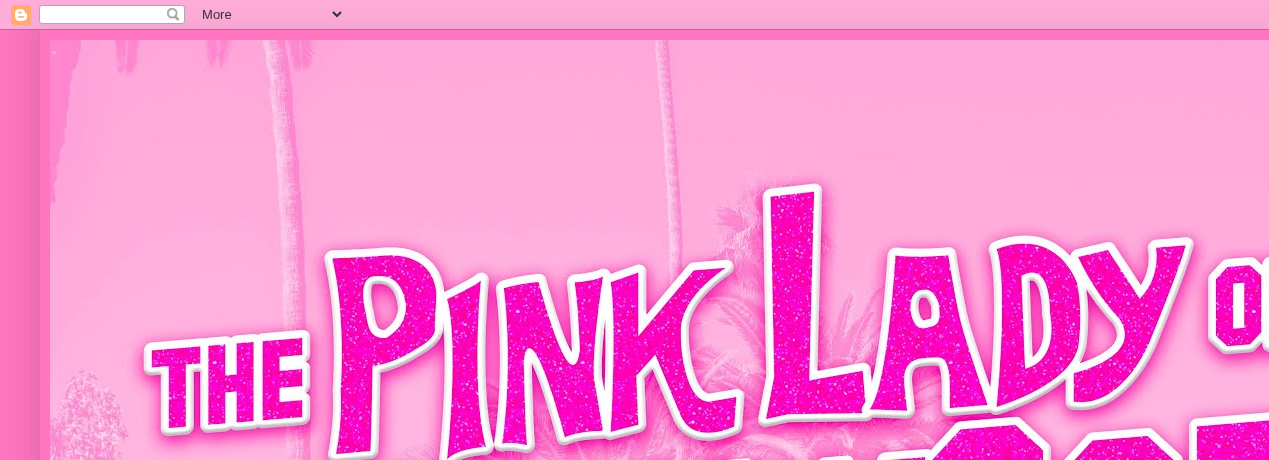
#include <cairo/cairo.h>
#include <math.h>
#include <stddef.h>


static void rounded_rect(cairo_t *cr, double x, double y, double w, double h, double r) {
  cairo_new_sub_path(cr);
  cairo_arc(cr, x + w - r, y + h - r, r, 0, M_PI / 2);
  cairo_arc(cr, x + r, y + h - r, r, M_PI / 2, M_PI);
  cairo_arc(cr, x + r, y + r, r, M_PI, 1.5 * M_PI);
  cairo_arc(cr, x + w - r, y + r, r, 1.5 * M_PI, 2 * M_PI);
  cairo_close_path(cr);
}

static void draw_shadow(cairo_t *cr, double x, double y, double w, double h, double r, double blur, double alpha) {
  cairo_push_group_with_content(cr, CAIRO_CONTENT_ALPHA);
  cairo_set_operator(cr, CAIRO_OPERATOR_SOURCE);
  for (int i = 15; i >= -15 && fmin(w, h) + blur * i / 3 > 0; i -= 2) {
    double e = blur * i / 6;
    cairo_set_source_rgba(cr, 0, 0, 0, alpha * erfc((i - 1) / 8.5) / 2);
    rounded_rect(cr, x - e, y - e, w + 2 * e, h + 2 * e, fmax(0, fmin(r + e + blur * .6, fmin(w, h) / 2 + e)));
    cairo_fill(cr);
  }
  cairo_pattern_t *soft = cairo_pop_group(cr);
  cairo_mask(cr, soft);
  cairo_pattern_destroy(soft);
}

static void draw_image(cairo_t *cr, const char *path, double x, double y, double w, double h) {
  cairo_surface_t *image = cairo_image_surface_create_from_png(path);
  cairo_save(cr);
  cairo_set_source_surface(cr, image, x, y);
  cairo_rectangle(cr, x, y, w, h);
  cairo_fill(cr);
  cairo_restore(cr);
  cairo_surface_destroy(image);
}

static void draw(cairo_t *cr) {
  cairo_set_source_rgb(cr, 1, 117 / 255.0, 192 / 255.0);
  cairo_paint(cr);
  cairo_save(cr);
  cairo_set_fill_rule(cr, CAIRO_FILL_RULE_EVEN_ODD);
  cairo_new_path(cr);
  cairo_move_to(cr, 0, 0);
  cairo_line_to(cr, 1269, 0);
  cairo_line_to(cr, 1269, 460);
  cairo_line_to(cr, 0, 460);
  cairo_close_path(cr);
  cairo_move_to(cr, 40, 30);
  cairo_line_to(cr, 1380, 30);
  cairo_line_to(cr, 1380, 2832);
  cairo_line_to(cr, 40, 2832);
  cairo_close_path(cr);
  cairo_clip(cr);
  cairo_set_source_rgb(cr, 0, 0, 0);
  draw_shadow(cr, 40, 30, 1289, 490, 0, 20, 0.15);
  cairo_restore(cr);
  draw_image(cr, "images/1.png", 50, 40, 1219, 420);
  draw_image(cr, "images/2.png", 0, 0, 1269, 30);
}

int main(void) {
  cairo_surface_t *surface = cairo_image_surface_create(CAIRO_FORMAT_RGB24, 1269, 460);
  cairo_t *cr = cairo_create(surface);
  cairo_font_options_t *options = cairo_font_options_create();
  cairo_font_options_set_hint_metrics(options, CAIRO_HINT_METRICS_OFF);
  cairo_font_options_set_hint_style(options, CAIRO_HINT_STYLE_NONE);
  cairo_set_font_options(cr, options);
  cairo_set_miter_limit(cr, 4);
  draw(cr);
  cairo_surface_write_to_png(surface, "out.png");
  cairo_font_options_destroy(options);
  cairo_destroy(cr);
  cairo_surface_destroy(surface);
  return 0;
}
